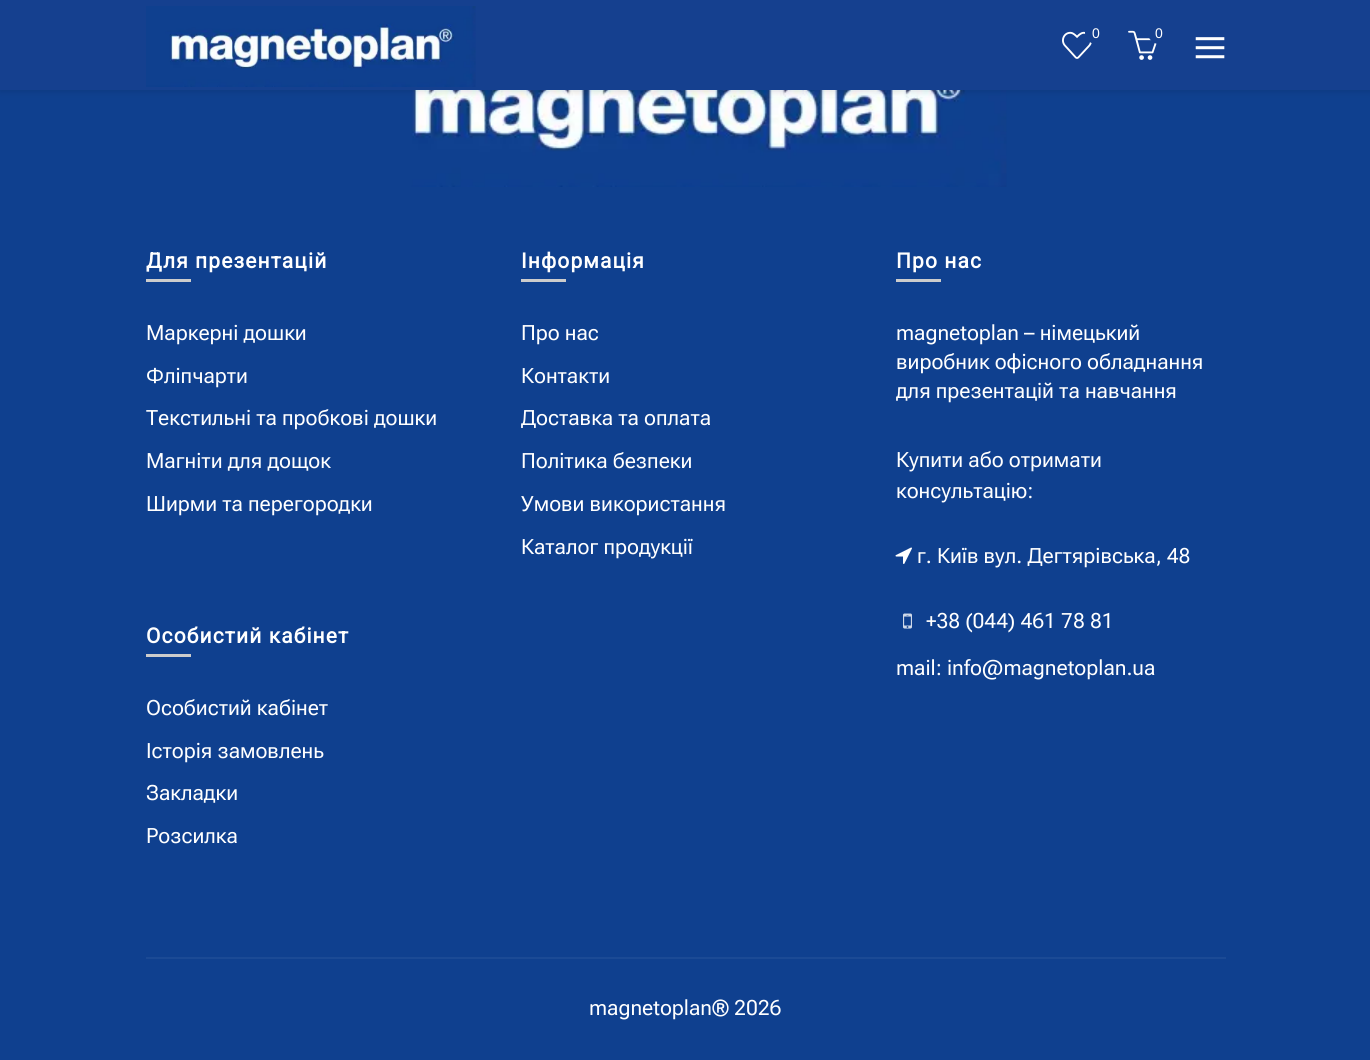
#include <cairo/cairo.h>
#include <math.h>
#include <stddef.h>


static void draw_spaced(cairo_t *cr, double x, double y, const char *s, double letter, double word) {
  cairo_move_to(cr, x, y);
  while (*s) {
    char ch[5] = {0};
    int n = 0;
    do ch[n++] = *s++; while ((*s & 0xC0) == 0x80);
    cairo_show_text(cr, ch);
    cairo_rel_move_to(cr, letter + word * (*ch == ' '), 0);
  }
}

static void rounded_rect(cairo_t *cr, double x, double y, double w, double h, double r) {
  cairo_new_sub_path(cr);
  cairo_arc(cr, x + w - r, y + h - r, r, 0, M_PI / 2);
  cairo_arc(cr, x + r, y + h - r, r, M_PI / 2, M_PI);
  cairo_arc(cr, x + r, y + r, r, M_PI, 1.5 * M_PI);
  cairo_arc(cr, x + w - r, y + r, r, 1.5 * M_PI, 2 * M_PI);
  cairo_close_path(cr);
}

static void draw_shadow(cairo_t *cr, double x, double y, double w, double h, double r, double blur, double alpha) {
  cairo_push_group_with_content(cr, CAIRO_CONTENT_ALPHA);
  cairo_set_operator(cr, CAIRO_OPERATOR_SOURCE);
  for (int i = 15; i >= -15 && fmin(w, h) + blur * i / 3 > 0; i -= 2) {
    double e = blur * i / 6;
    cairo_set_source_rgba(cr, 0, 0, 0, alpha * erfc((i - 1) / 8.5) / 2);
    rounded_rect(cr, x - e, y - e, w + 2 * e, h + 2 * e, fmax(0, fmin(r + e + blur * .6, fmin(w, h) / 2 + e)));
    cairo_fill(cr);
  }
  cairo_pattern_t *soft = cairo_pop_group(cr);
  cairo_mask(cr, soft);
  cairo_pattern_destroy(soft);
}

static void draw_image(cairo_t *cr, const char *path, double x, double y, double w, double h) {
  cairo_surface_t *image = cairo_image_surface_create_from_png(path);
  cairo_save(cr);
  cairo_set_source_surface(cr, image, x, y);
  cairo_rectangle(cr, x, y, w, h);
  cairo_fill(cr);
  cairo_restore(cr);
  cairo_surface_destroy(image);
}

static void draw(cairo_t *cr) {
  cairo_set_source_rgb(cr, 15 / 255.0, 64 / 255.0, 143 / 255.0);
  cairo_paint(cr);
  draw_image(cr, "images/5.png", 411, 90, 596, 97);
  cairo_set_source_rgb(cr, 0, 0, 0);
  draw_shadow(cr, 0, 2, 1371, 90, 0, 3, 0.1);
  cairo_set_source_rgb(cr, 21 / 255.0, 64 / 255.0, 143 / 255.0);
  cairo_rectangle(cr, 0, 0, 1370, 90);
  cairo_fill(cr);
  draw_image(cr, "images/1.png", 146, 6, 330, 81);
  draw_image(cr, "images/2.png", 1062, 31, 30, 28);
  rounded_rect(cr, 1085, 21, 22, 23, 11);
  cairo_fill(cr);
  draw_image(cr, "images/3.png", 1128, 30, 29, 30);
  rounded_rect(cr, 1148, 21, 22, 23, 11);
  cairo_fill(cr);
  draw_image(cr, "images/4.png", 1195, 37, 30, 22);
  cairo_set_source_rgb(cr, 204 / 255.0, 204 / 255.0, 204 / 255.0);
  cairo_rectangle(cr, 146, 279, 45, 3);
  cairo_fill(cr);
  cairo_rectangle(cr, 521, 279, 45, 3);
  cairo_fill(cr);
  cairo_rectangle(cr, 146, 654, 45, 3);
  cairo_fill(cr);
  cairo_rectangle(cr, 896, 279, 45, 3);
  cairo_fill(cr);
  draw_image(cr, "images/6.png", 895, 547, 17, 17);
  draw_image(cr, "images/7.png", 903, 613, 9, 16);
  cairo_set_source_rgb(cr, 27 / 255.0, 74 / 255.0, 149 / 255.0);
  cairo_rectangle(cr, 146, 957, 1080, 2);
  cairo_fill(cr);
  cairo_select_font_face(cr, "Liberation Sans", CAIRO_FONT_SLANT_NORMAL, CAIRO_FONT_WEIGHT_NORMAL);
  cairo_set_font_size(cr, 14);
  cairo_set_source_rgb(cr, 1, 1, 1);
  cairo_move_to(cr, 1092, 38);
  cairo_show_text(cr, "0");
  cairo_move_to(cr, 1155, 38);
  cairo_show_text(cr, "0");
  cairo_select_font_face(cr, "Roboto", CAIRO_FONT_SLANT_NORMAL, CAIRO_FONT_WEIGHT_BOLD);
  cairo_set_font_size(cr, 21);
  draw_spaced(cr, 146, 268, "Для презентацій", 1.1, 0);
  cairo_select_font_face(cr, "Roboto Flex", CAIRO_FONT_SLANT_NORMAL, CAIRO_FONT_WEIGHT_NORMAL);
  cairo_move_to(cr, 146, 340);
  cairo_show_text(cr, "Маркерні дошки");
  cairo_move_to(cr, 146, 383);
  cairo_show_text(cr, "Фліпчарти");
  cairo_move_to(cr, 146, 425);
  cairo_show_text(cr, "Текстильні та пробкові дошки");
  cairo_move_to(cr, 146, 468);
  cairo_show_text(cr, "Магніти для дощок");
  cairo_move_to(cr, 146, 511);
  cairo_show_text(cr, "Ширми та перегородки");
  cairo_select_font_face(cr, "Roboto", CAIRO_FONT_SLANT_NORMAL, CAIRO_FONT_WEIGHT_BOLD);
  draw_spaced(cr, 521, 268, "Інформація", 1.1, 0);
  cairo_select_font_face(cr, "Roboto Flex", CAIRO_FONT_SLANT_NORMAL, CAIRO_FONT_WEIGHT_NORMAL);
  cairo_move_to(cr, 521, 340);
  cairo_show_text(cr, "Про нас");
  cairo_move_to(cr, 521, 383);
  cairo_show_text(cr, "Контакти");
  cairo_move_to(cr, 521, 425);
  cairo_show_text(cr, "Доставка та оплата");
  cairo_move_to(cr, 521, 468);
  cairo_show_text(cr, "Політика безпеки");
  cairo_move_to(cr, 521, 511);
  cairo_show_text(cr, "Умови використання");
  cairo_move_to(cr, 521, 554);
  cairo_show_text(cr, "Каталог продукції");
  cairo_select_font_face(cr, "Roboto", CAIRO_FONT_SLANT_NORMAL, CAIRO_FONT_WEIGHT_BOLD);
  draw_spaced(cr, 146, 643, "Особистий кабінет", 1.1, 0);
  cairo_select_font_face(cr, "Roboto Flex", CAIRO_FONT_SLANT_NORMAL, CAIRO_FONT_WEIGHT_NORMAL);
  cairo_move_to(cr, 146, 715);
  cairo_show_text(cr, "Особистий кабінет");
  cairo_move_to(cr, 146, 758);
  cairo_show_text(cr, "Історія замовлень");
  cairo_move_to(cr, 146, 800);
  cairo_show_text(cr, "Закладки");
  cairo_move_to(cr, 146, 843);
  cairo_show_text(cr, "Розсилка");
  cairo_select_font_face(cr, "Roboto", CAIRO_FONT_SLANT_NORMAL, CAIRO_FONT_WEIGHT_BOLD);
  draw_spaced(cr, 896, 268, "Про нас", 1.1, 0);
  cairo_select_font_face(cr, "Roboto Flex", CAIRO_FONT_SLANT_NORMAL, CAIRO_FONT_WEIGHT_NORMAL);
  cairo_move_to(cr, 896, 340);
  cairo_show_text(cr, "magnetoplan – німецький");
  cairo_move_to(cr, 896, 369);
  cairo_show_text(cr, "виробник офісного обладнання");
  cairo_move_to(cr, 896, 398);
  cairo_show_text(cr, "для презентацій та навчання");
  cairo_move_to(cr, 896, 467);
  cairo_show_text(cr, "Купити або отримати");
  cairo_move_to(cr, 896, 498);
  cairo_show_text(cr, "консультацію:");
  cairo_move_to(cr, 917, 563);
  cairo_show_text(cr, "г. Київ вул. Дегтярівська, 48");
  cairo_move_to(cr, 926, 628);
  cairo_show_text(cr, "+38 (044) 461 78 81");
  cairo_move_to(cr, 896, 675);
  cairo_show_text(cr, "mail: info@magnetoplan.ua");
  cairo_move_to(cr, 589, 1015);
  cairo_show_text(cr, "magnetoplan® 2026");
}

int main(void) {
  cairo_surface_t *surface = cairo_image_surface_create(CAIRO_FORMAT_RGB24, 1370, 1060);
  cairo_t *cr = cairo_create(surface);
  cairo_font_options_t *options = cairo_font_options_create();
  cairo_font_options_set_hint_metrics(options, CAIRO_HINT_METRICS_OFF);
  cairo_font_options_set_hint_style(options, CAIRO_HINT_STYLE_NONE);
  cairo_set_font_options(cr, options);
  cairo_set_miter_limit(cr, 4);
  draw(cr);
  cairo_surface_write_to_png(surface, "out.png");
  cairo_font_options_destroy(options);
  cairo_destroy(cr);
  cairo_surface_destroy(surface);
  return 0;
}
